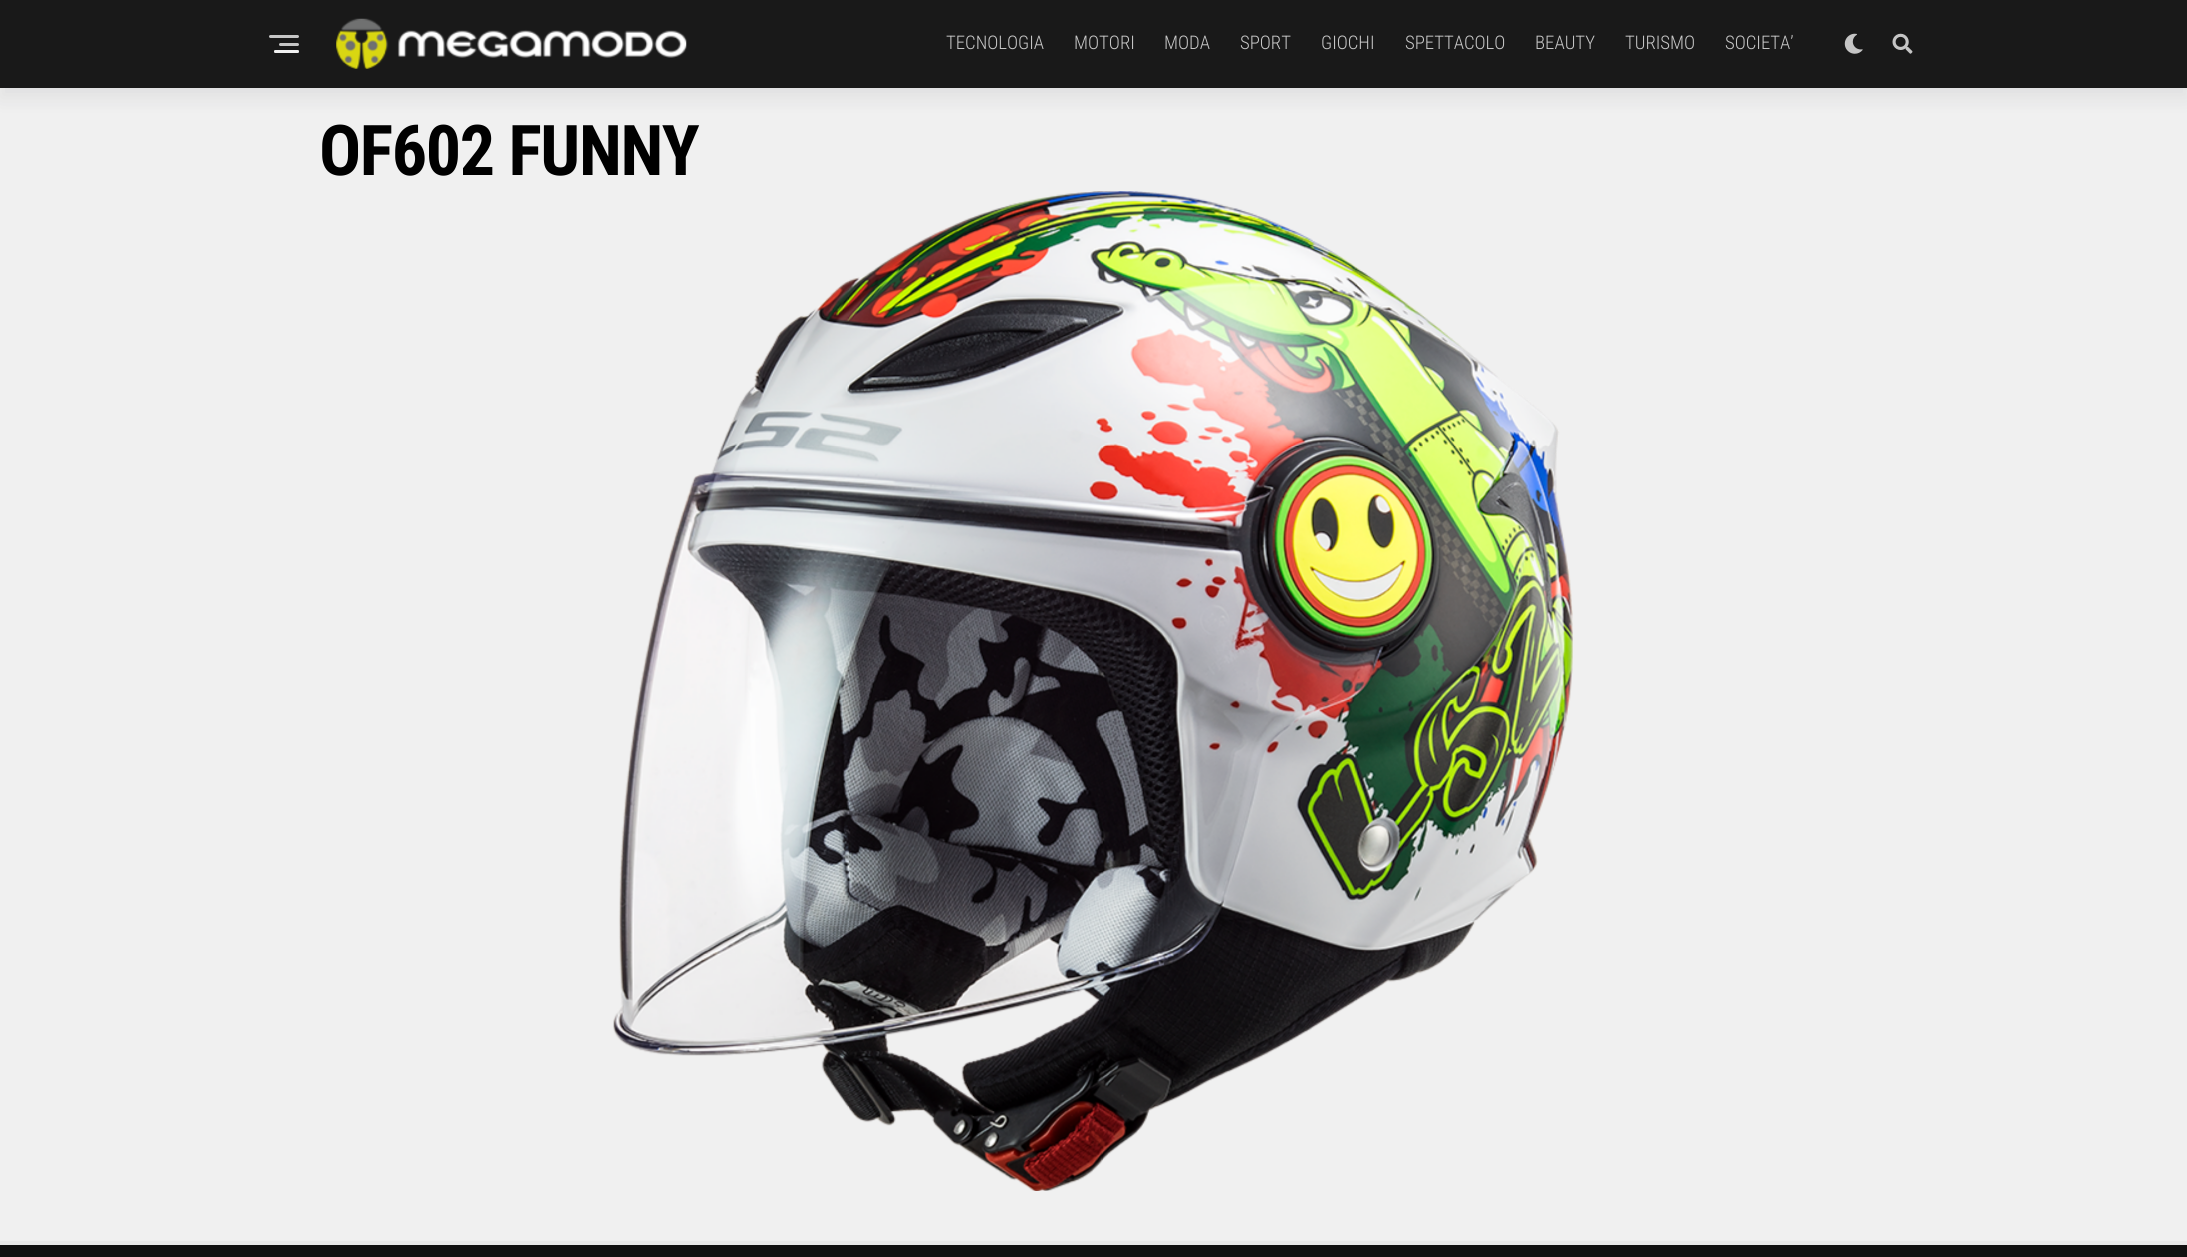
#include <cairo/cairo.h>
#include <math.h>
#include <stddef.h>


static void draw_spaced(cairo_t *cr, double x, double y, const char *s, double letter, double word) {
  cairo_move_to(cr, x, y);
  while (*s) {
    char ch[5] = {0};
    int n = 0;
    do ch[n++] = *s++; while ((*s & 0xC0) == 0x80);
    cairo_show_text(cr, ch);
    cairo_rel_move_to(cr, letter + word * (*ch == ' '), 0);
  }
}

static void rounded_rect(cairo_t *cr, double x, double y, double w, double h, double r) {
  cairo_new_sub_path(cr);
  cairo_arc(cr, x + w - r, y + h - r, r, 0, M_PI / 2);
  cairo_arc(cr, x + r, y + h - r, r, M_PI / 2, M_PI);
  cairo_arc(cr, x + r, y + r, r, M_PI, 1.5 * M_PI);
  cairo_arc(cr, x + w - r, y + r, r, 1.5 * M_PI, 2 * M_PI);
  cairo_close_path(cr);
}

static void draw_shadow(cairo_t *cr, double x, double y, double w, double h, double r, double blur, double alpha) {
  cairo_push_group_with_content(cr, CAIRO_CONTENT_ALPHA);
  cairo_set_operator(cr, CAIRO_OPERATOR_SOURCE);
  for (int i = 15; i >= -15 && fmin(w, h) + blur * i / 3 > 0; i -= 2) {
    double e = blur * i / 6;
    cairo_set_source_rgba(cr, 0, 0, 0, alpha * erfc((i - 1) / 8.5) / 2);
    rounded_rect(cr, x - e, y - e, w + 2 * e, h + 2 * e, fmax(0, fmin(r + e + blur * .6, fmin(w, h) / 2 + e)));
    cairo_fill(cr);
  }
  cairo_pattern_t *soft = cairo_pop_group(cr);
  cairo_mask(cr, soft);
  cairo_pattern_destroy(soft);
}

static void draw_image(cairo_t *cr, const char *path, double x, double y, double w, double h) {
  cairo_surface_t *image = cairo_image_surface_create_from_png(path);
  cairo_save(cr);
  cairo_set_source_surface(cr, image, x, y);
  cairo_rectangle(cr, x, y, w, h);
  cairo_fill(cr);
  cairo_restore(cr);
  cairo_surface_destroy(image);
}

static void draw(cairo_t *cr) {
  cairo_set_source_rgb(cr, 240 / 255.0, 240 / 255.0, 240 / 255.0);
  cairo_paint(cr);
  cairo_set_source_rgb(cr, 21 / 255.0, 21 / 255.0, 30 / 255.0);
  draw_shadow(cr, 0, 10, 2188, 88, 0, 10, 0.08);
  cairo_set_source_rgb(cr, 25 / 255.0, 25 / 255.0, 25 / 255.0);
  cairo_rectangle(cr, 0, 0, 2187, 88);
  cairo_fill(cr);
  cairo_set_source_rgb(cr, 198 / 255.0, 198 / 255.0, 198 / 255.0);
  rounded_rect(cr, 269, 35, 30, 3, 1.5);
  cairo_fill(cr);
  rounded_rect(cr, 279, 43, 20, 3, 1.5);
  cairo_fill(cr);
  rounded_rect(cr, 274, 50, 25, 3, 1.5);
  cairo_fill(cr);
  cairo_set_source_rgba(cr, 1, 1, 1, 0.75);
  rounded_rect(cr, 274, 50, 25, 3, 1.5);
  cairo_fill(cr);
  draw_image(cr, "images/1.png", 336, 18, 351, 51);
  draw_image(cr, "images/2.png", 1844, 33, 19, 21);
  draw_image(cr, "images/3.png", 1892, 33, 21, 21);
  draw_image(cr, "images/4.png", 613, 191, 960, 1000);
  cairo_set_source_rgb(cr, 17 / 255.0, 17 / 255.0, 17 / 255.0);
  cairo_rectangle(cr, 0, 1245, 2187, 12);
  cairo_fill(cr);
  cairo_set_source_rgb(cr, 233 / 255.0, 233 / 255.0, 233 / 255.0);
  cairo_rectangle(cr, 0, 1241, 2187, 4);
  cairo_fill(cr);
  cairo_select_font_face(cr, "Roboto Condensed Light", CAIRO_FONT_SLANT_NORMAL, CAIRO_FONT_WEIGHT_NORMAL);
  cairo_set_font_size(cr, 18.75);
  cairo_set_source_rgb(cr, 198 / 255.0, 198 / 255.0, 198 / 255.0);
  cairo_move_to(cr, 946, 49);
  cairo_show_text(cr, "TECNOLOGIA");
  cairo_move_to(cr, 1074, 49);
  cairo_show_text(cr, "MOTORI");
  cairo_move_to(cr, 1164, 49);
  cairo_show_text(cr, "MODA");
  cairo_move_to(cr, 1240, 49);
  cairo_show_text(cr, "SPORT");
  cairo_move_to(cr, 1321, 49);
  cairo_show_text(cr, "GIOCHI");
  cairo_move_to(cr, 1405, 49);
  cairo_show_text(cr, "SPETTACOLO");
  cairo_move_to(cr, 1535, 49);
  cairo_show_text(cr, "BEAUTY");
  cairo_move_to(cr, 1625, 49);
  cairo_show_text(cr, "TURISMO");
  cairo_move_to(cr, 1725, 49);
  cairo_show_text(cr, "SOCIETA’");
  cairo_select_font_face(cr, "Roboto Condensed", CAIRO_FONT_SLANT_NORMAL, CAIRO_FONT_WEIGHT_BOLD);
  cairo_set_font_size(cr, 70);
  cairo_set_source_rgb(cr, 0, 0, 0);
  draw_spaced(cr, 319, 175, "OF602 FUNNY", -1.4, 0);
}

int main(void) {
  cairo_surface_t *surface = cairo_image_surface_create(CAIRO_FORMAT_RGB24, 2187, 1257);
  cairo_t *cr = cairo_create(surface);
  cairo_font_options_t *options = cairo_font_options_create();
  cairo_font_options_set_hint_metrics(options, CAIRO_HINT_METRICS_OFF);
  cairo_font_options_set_hint_style(options, CAIRO_HINT_STYLE_NONE);
  cairo_set_font_options(cr, options);
  cairo_set_miter_limit(cr, 4);
  draw(cr);
  cairo_surface_write_to_png(surface, "out.png");
  cairo_font_options_destroy(options);
  cairo_destroy(cr);
  cairo_surface_destroy(surface);
  return 0;
}
